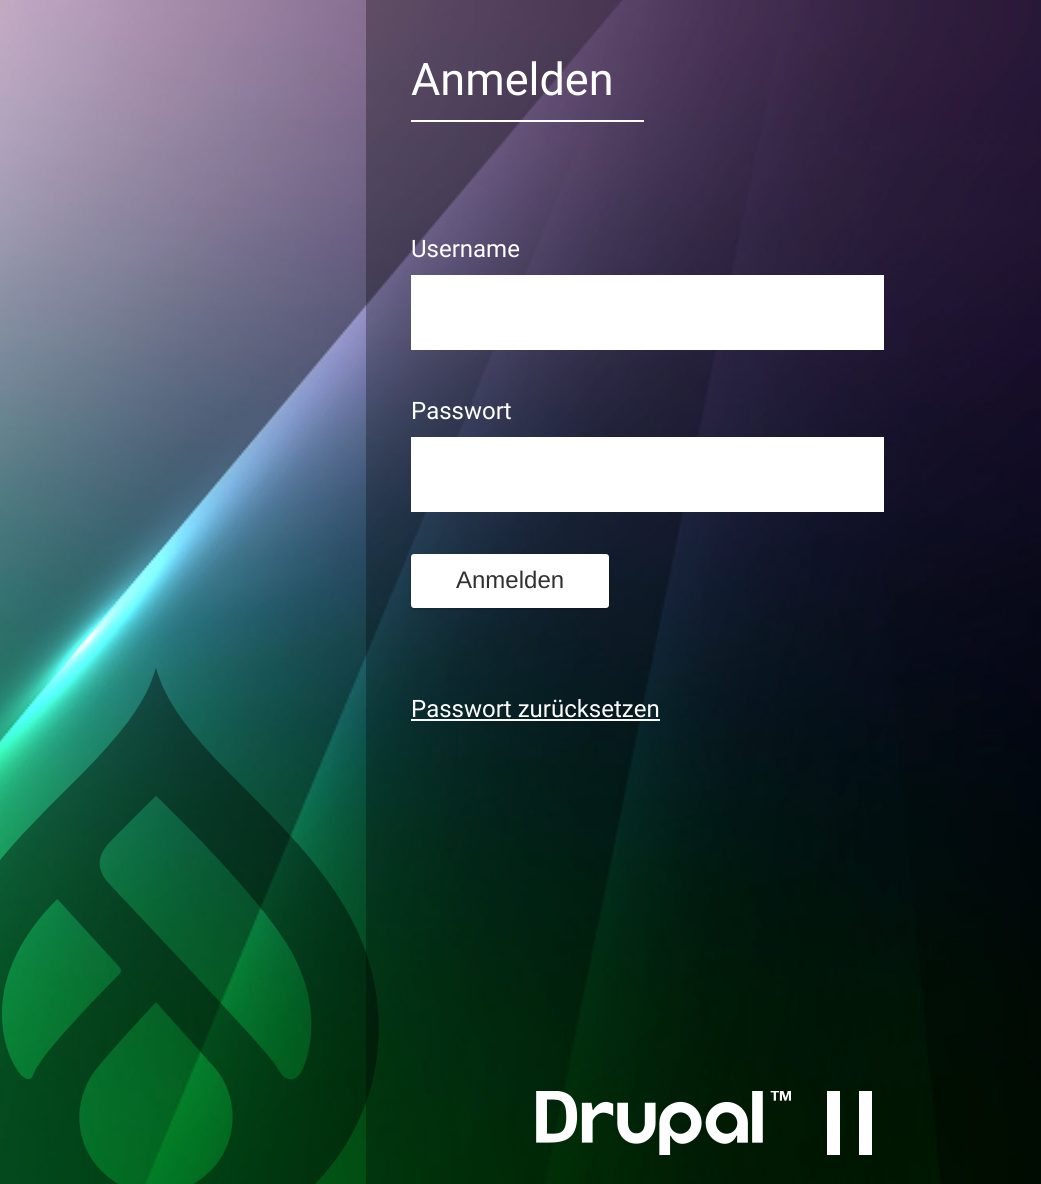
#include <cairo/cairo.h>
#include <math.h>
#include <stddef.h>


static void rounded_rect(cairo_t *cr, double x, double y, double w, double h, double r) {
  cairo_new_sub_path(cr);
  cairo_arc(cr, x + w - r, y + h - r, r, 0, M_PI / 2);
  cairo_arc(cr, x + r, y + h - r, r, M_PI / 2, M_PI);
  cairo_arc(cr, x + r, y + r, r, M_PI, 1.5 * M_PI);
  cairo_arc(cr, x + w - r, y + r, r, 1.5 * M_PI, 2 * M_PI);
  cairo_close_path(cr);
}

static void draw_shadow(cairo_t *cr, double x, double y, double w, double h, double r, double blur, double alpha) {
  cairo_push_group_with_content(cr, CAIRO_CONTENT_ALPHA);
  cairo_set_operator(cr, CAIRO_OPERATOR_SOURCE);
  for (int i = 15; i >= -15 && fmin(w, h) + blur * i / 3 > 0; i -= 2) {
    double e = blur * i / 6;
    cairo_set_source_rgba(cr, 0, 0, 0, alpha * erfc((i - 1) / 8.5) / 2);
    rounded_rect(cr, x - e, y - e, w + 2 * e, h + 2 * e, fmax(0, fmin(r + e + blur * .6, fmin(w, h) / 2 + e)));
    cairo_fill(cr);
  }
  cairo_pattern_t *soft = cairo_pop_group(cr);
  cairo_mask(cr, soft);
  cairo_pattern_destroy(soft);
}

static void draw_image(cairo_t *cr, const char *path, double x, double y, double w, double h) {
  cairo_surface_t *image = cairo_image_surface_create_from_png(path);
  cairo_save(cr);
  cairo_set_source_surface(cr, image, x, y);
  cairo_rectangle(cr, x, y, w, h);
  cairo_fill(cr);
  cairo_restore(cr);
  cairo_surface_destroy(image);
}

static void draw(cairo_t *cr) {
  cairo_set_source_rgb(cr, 1, 1, 1);
  cairo_paint(cr);
  draw_image(cr, "images/1.png", 0, 0, 1041, 1184);
  cairo_set_source_rgba(cr, 0, 0, 0, 0.3);
  cairo_rectangle(cr, 366, 0, 675, 1184);
  cairo_fill(cr);
  draw_image(cr, "images/2.png", 536, 1091, 336, 64);
  cairo_set_source_rgb(cr, 1, 1, 1);
  cairo_rectangle(cr, 411, 120, 233, 2);
  cairo_fill(cr);
  cairo_rectangle(cr, 411, 275, 473, 75);
  cairo_fill(cr);
  cairo_rectangle(cr, 411, 437, 473, 75);
  cairo_fill(cr);
  cairo_set_source_rgb(cr, 0, 0, 0);
  draw_shadow(cr, 411, 555, 198, 54, 3, 1.5, 0.25);
  cairo_set_source_rgb(cr, 1, 1, 1);
  rounded_rect(cr, 411, 554, 198, 54, 3);
  cairo_fill(cr);
  cairo_rectangle(cr, 411, 719, 249, 2);
  cairo_fill(cr);
  cairo_select_font_face(cr, "Roboto", CAIRO_FONT_SLANT_NORMAL, CAIRO_FONT_WEIGHT_NORMAL);
  cairo_set_font_size(cr, 45);
  cairo_move_to(cr, 411, 95);
  cairo_show_text(cr, "Anmelden");
  cairo_set_font_size(cr, 24);
  cairo_move_to(cr, 411, 257);
  cairo_show_text(cr, "Username");
  cairo_move_to(cr, 411, 419);
  cairo_show_text(cr, "Passwort");
  cairo_select_font_face(cr, "Liberation Sans", CAIRO_FONT_SLANT_NORMAL, CAIRO_FONT_WEIGHT_NORMAL);
  cairo_set_source_rgb(cr, 48 / 255.0, 48 / 255.0, 48 / 255.0);
  cairo_move_to(cr, 456, 588);
  cairo_show_text(cr, "Anmelden");
  cairo_select_font_face(cr, "Roboto", CAIRO_FONT_SLANT_NORMAL, CAIRO_FONT_WEIGHT_NORMAL);
  cairo_set_source_rgb(cr, 1, 1, 1);
  cairo_move_to(cr, 411, 717);
  cairo_show_text(cr, "Passwort zurücksetzen");
}

int main(void) {
  cairo_surface_t *surface = cairo_image_surface_create(CAIRO_FORMAT_RGB24, 1041, 1184);
  cairo_t *cr = cairo_create(surface);
  cairo_font_options_t *options = cairo_font_options_create();
  cairo_font_options_set_hint_metrics(options, CAIRO_HINT_METRICS_OFF);
  cairo_font_options_set_hint_style(options, CAIRO_HINT_STYLE_NONE);
  cairo_set_font_options(cr, options);
  cairo_set_miter_limit(cr, 4);
  draw(cr);
  cairo_surface_write_to_png(surface, "out.png");
  cairo_font_options_destroy(options);
  cairo_destroy(cr);
  cairo_surface_destroy(surface);
  return 0;
}
